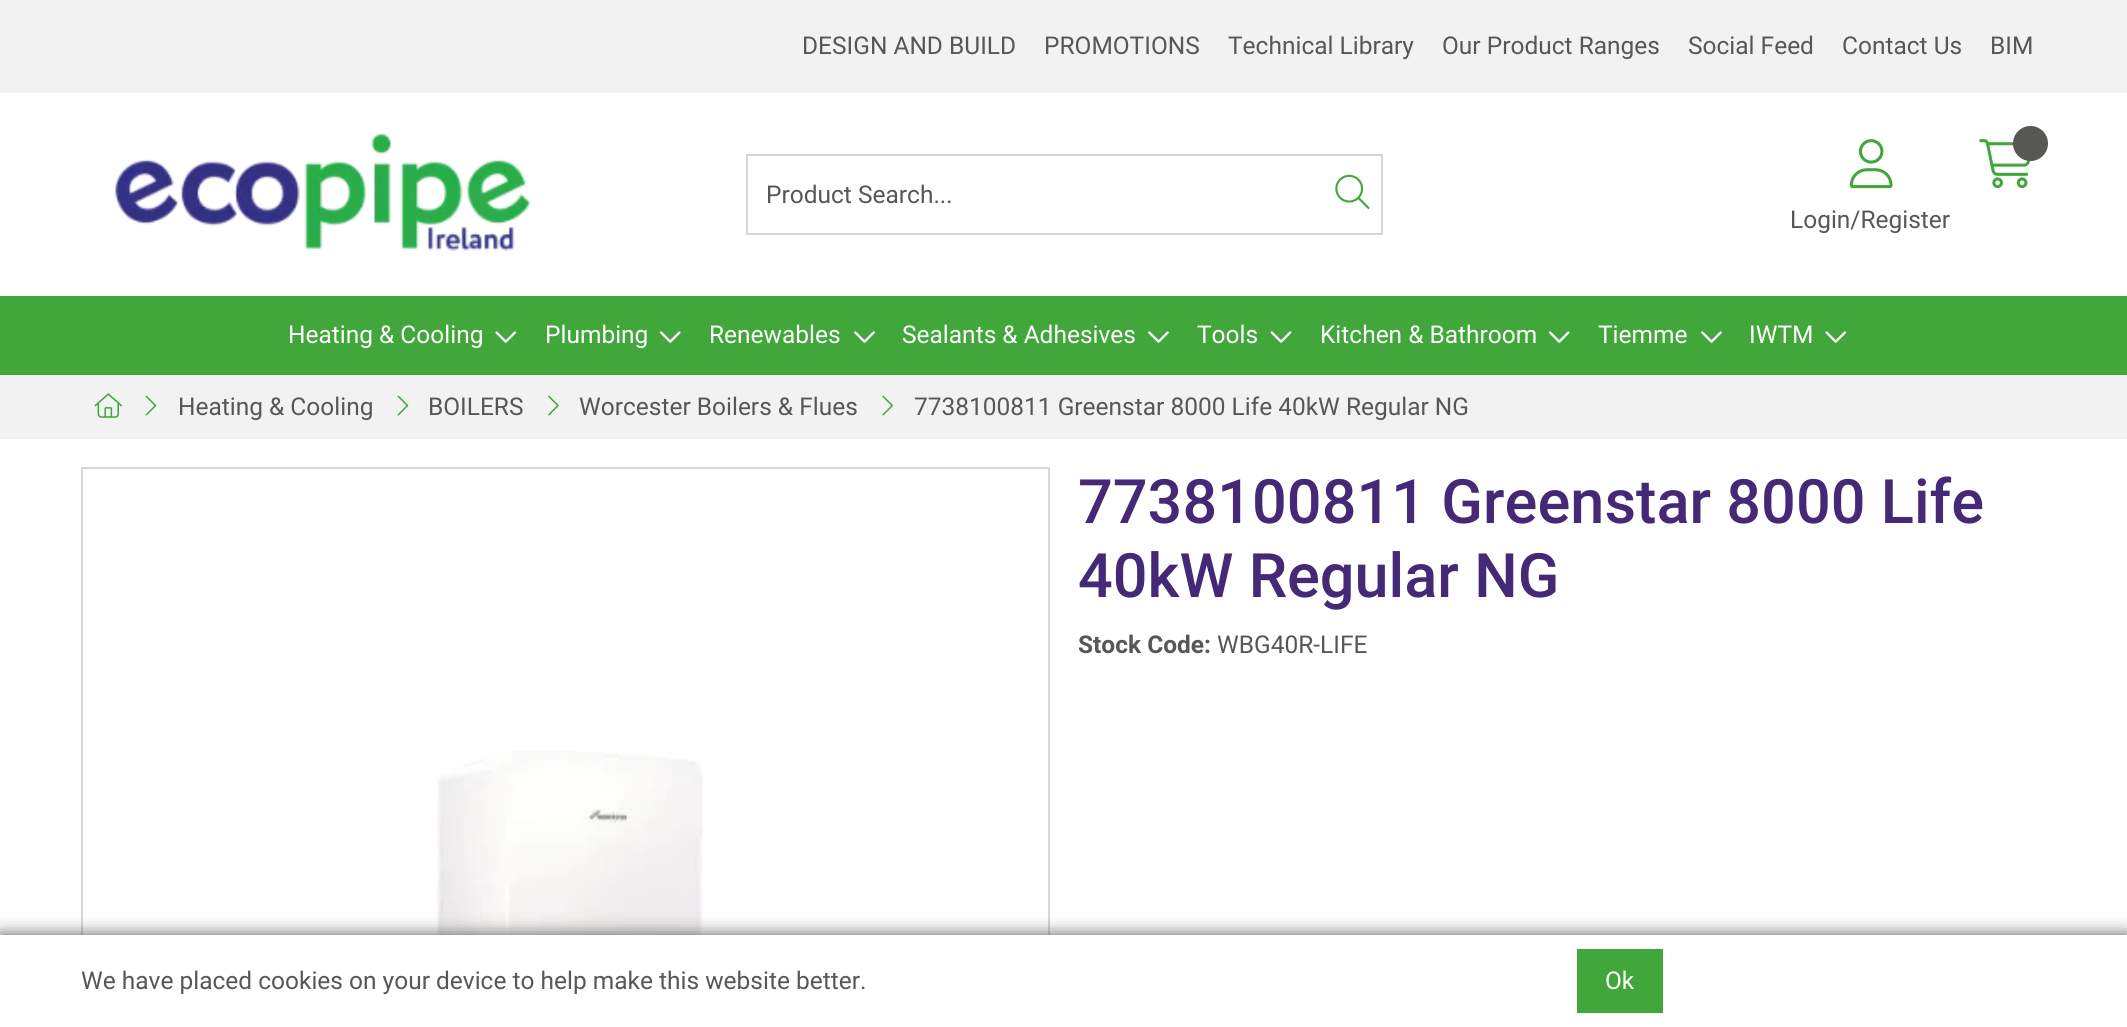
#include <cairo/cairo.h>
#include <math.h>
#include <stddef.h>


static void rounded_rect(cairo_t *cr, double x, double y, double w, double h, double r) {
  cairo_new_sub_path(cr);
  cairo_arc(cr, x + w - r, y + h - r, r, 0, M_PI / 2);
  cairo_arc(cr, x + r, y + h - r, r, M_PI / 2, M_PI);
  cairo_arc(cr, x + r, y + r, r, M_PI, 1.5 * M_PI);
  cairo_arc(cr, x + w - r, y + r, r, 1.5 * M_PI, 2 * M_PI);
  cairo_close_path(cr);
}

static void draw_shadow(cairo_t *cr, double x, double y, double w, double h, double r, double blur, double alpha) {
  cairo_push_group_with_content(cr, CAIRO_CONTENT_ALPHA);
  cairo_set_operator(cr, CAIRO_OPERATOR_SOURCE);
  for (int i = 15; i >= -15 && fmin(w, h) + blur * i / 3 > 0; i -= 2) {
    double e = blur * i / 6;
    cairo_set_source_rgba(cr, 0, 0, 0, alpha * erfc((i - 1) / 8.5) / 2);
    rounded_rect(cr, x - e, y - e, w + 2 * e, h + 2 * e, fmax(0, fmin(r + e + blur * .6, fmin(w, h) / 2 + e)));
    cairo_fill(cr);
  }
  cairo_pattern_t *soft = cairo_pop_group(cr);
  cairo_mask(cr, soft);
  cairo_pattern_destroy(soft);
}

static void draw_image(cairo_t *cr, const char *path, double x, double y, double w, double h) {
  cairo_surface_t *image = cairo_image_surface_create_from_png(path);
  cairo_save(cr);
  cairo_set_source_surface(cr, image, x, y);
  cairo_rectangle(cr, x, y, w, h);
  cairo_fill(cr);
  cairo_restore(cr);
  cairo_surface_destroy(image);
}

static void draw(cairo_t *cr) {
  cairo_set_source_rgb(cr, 1, 1, 1);
  cairo_paint(cr);
  cairo_set_source_rgb(cr, 242 / 255.0, 242 / 255.0, 242 / 255.0);
  cairo_rectangle(cr, 0, 0, 2127, 93);
  cairo_fill(cr);
  draw_image(cr, "images/1.png", 115, 132, 416, 119);
  cairo_rectangle(cr, 747, 155, 635, 79);
  cairo_set_source_rgb(cr, 214 / 255.0, 214 / 255.0, 214 / 255.0);
  cairo_stroke(cr);
  draw_image(cr, "images/2.png", 1335, 174, 35, 35);
  draw_image(cr, "images/3.png", 1979, 139, 52, 50);
  cairo_set_source_rgb(cr, 87 / 255.0, 87 / 255.0, 86 / 255.0);
  cairo_arc(cr, 2030.5, 143.5, 17.5, 0, 2 * M_PI);
  cairo_fill(cr);
  draw_image(cr, "images/4.png", 1849, 139, 44, 50);
  cairo_set_source_rgb(cr, 66 / 255.0, 167 / 255.0, 59 / 255.0);
  cairo_rectangle(cr, 0, 296, 2127, 79);
  cairo_fill(cr);
  draw_image(cr, "images/5.png", 495, 331, 22, 12);
  draw_image(cr, "images/6.png", 659, 331, 22, 12);
  draw_image(cr, "images/7.png", 854, 331, 21, 12);
  draw_image(cr, "images/7.png", 1148, 331, 21, 12);
  draw_image(cr, "images/8.png", 1270, 331, 22, 12);
  draw_image(cr, "images/6.png", 1548, 331, 22, 12);
  draw_image(cr, "images/7.png", 1701, 331, 21, 12);
  draw_image(cr, "images/5.png", 1825, 331, 22, 12);
  cairo_set_source_rgb(cr, 242 / 255.0, 242 / 255.0, 242 / 255.0);
  cairo_rectangle(cr, 0, 375, 2127, 64);
  cairo_fill(cr);
  draw_image(cr, "images/9.png", 94, 393, 28, 25);
  draw_image(cr, "images/10.png", 145, 395, 12, 21);
  draw_image(cr, "images/10.png", 397, 395, 12, 21);
  draw_image(cr, "images/11.png", 548, 395, 11, 21);
  draw_image(cr, "images/12.png", 882, 395, 11, 21);
  cairo_rectangle(cr, 82, 468, 967, 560);
  cairo_set_source_rgb(cr, 214 / 255.0, 214 / 255.0, 214 / 255.0);
  cairo_stroke(cr);
  draw_image(cr, "images/13.png", 436, 750, 267, 185);
  cairo_set_source_rgb(cr, 87 / 255.0, 87 / 255.0, 86 / 255.0);
  draw_shadow(cr, 0, 935, 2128, 92, 0, 9, 1);
  cairo_set_source_rgb(cr, 1, 1, 1);
  cairo_rectangle(cr, 0, 935, 2127, 92);
  cairo_fill(cr);
  cairo_set_source_rgb(cr, 66 / 255.0, 167 / 255.0, 59 / 255.0);
  cairo_rectangle(cr, 1577, 949, 86, 64);
  cairo_fill(cr);
  cairo_select_font_face(cr, "Roboto", CAIRO_FONT_SLANT_NORMAL, CAIRO_FONT_WEIGHT_NORMAL);
  cairo_set_font_size(cr, 24.5);
  cairo_set_source_rgb(cr, 87 / 255.0, 87 / 255.0, 86 / 255.0);
  cairo_move_to(cr, 802, 54);
  cairo_show_text(cr, "DESIGN AND BUILD");
  cairo_move_to(cr, 1044, 54);
  cairo_show_text(cr, "PROMOTIONS");
  cairo_move_to(cr, 1228, 54);
  cairo_show_text(cr, "Technical Library");
  cairo_move_to(cr, 1442, 54);
  cairo_show_text(cr, "Our Product Ranges");
  cairo_move_to(cr, 1688, 54);
  cairo_show_text(cr, "Social Feed");
  cairo_move_to(cr, 1842, 54);
  cairo_show_text(cr, "Contact Us");
  cairo_move_to(cr, 1990, 54);
  cairo_show_text(cr, "BIM");
  cairo_move_to(cr, 766, 203);
  cairo_show_text(cr, "Product Search...");
  cairo_move_to(cr, 1790, 228);
  cairo_show_text(cr, "Login/Register");
  cairo_set_source_rgb(cr, 1, 1, 1);
  cairo_move_to(cr, 288, 343);
  cairo_show_text(cr, "Heating & Cooling");
  cairo_move_to(cr, 545, 343);
  cairo_show_text(cr, "Plumbing");
  cairo_move_to(cr, 709, 343);
  cairo_show_text(cr, "Renewables");
  cairo_move_to(cr, 902, 343);
  cairo_show_text(cr, "Sealants & Adhesives");
  cairo_move_to(cr, 1197, 343);
  cairo_show_text(cr, "Tools");
  cairo_move_to(cr, 1320, 343);
  cairo_show_text(cr, "Kitchen & Bathroom");
  cairo_move_to(cr, 1598, 343);
  cairo_show_text(cr, "Tiemme");
  cairo_move_to(cr, 1749, 343);
  cairo_show_text(cr, "IWTM");
  cairo_set_source_rgb(cr, 87 / 255.0, 87 / 255.0, 86 / 255.0);
  cairo_move_to(cr, 178, 415);
  cairo_show_text(cr, "Heating & Cooling");
  cairo_move_to(cr, 428, 415);
  cairo_show_text(cr, "BOILERS");
  cairo_move_to(cr, 579, 415);
  cairo_show_text(cr, "Worcester Boilers & Flues");
  cairo_move_to(cr, 914, 415);
  cairo_show_text(cr, "7738100811 Greenstar 8000 Life 40kW Regular NG");
  cairo_select_font_face(cr, "Roboto Medium", CAIRO_FONT_SLANT_NORMAL, CAIRO_FONT_WEIGHT_NORMAL);
  cairo_set_font_size(cr, 61.25);
  cairo_set_source_rgb(cr, 68 / 255.0, 41 / 255.0, 119 / 255.0);
  cairo_move_to(cr, 1078, 523);
  cairo_show_text(cr, "7738100811 Greenstar 8000 Life");
  cairo_move_to(cr, 1078, 597);
  cairo_show_text(cr, "40kW Regular NG");
  cairo_select_font_face(cr, "Roboto", CAIRO_FONT_SLANT_NORMAL, CAIRO_FONT_WEIGHT_BOLD);
  cairo_set_font_size(cr, 24.5);
  cairo_set_source_rgb(cr, 87 / 255.0, 87 / 255.0, 86 / 255.0);
  cairo_move_to(cr, 1078, 653);
  cairo_show_text(cr, "Stock Code:");
  cairo_select_font_face(cr, "Roboto", CAIRO_FONT_SLANT_NORMAL, CAIRO_FONT_WEIGHT_NORMAL);
  cairo_move_to(cr, 1217, 653);
  cairo_show_text(cr, "WBG40R-LIFE");
  cairo_move_to(cr, 81, 989);
  cairo_show_text(cr, "We have placed cookies on your device to help make this website better.");
  cairo_set_source_rgb(cr, 1, 1, 1);
  cairo_move_to(cr, 1605, 989);
  cairo_show_text(cr, "Ok");
}

int main(void) {
  cairo_surface_t *surface = cairo_image_surface_create(CAIRO_FORMAT_RGB24, 2127, 1027);
  cairo_t *cr = cairo_create(surface);
  cairo_font_options_t *options = cairo_font_options_create();
  cairo_font_options_set_hint_metrics(options, CAIRO_HINT_METRICS_OFF);
  cairo_font_options_set_hint_style(options, CAIRO_HINT_STYLE_NONE);
  cairo_set_font_options(cr, options);
  cairo_set_miter_limit(cr, 4);
  draw(cr);
  cairo_surface_write_to_png(surface, "out.png");
  cairo_font_options_destroy(options);
  cairo_destroy(cr);
  cairo_surface_destroy(surface);
  return 0;
}
